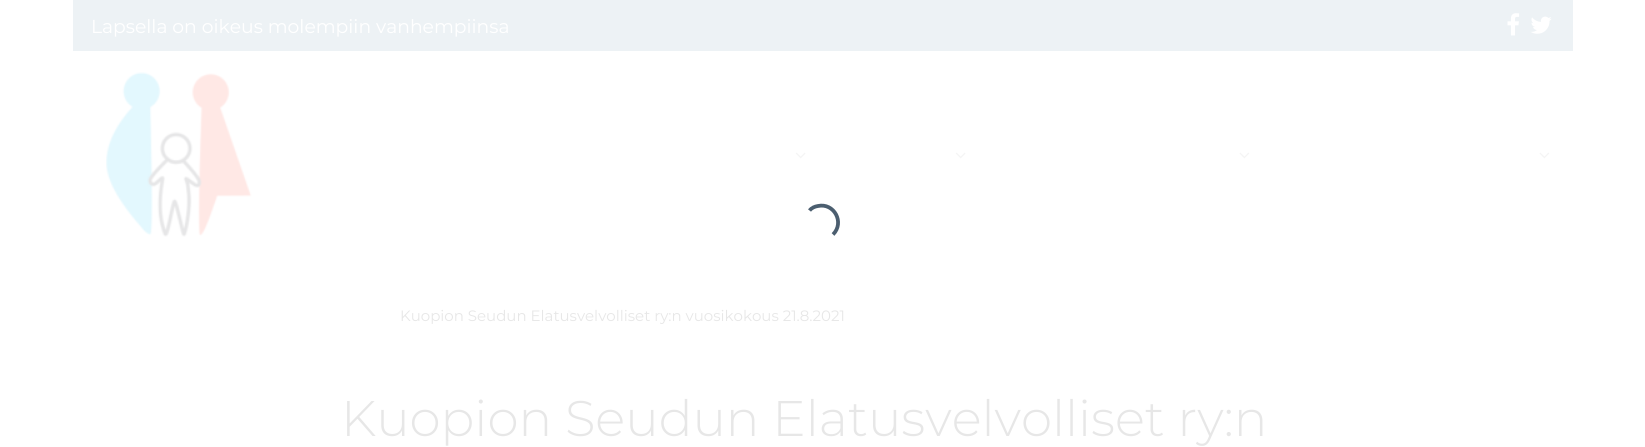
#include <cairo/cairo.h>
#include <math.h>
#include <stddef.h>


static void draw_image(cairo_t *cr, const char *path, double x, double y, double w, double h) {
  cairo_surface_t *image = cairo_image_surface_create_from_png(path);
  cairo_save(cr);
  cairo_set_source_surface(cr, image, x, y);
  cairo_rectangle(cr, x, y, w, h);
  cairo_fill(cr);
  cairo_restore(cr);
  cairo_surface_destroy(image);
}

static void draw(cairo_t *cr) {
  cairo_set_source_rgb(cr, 1, 1, 1);
  cairo_paint(cr);
  cairo_set_source_rgb(cr, 237 / 255.0, 242 / 255.0, 245 / 255.0);
  cairo_rectangle(cr, 73, 0, 1500, 51);
  cairo_fill(cr);
  draw_image(cr, "images/1.png", 1507, 13, 13, 23);
  draw_image(cr, "images/2.png", 1530, 16, 22, 18);
  draw_image(cr, "images/3.png", 106, 72, 146, 165);
  draw_image(cr, "images/4.png", 795, 152, 11, 7);
  draw_image(cr, "images/4.png", 955, 152, 11, 7);
  draw_image(cr, "images/5.png", 1239, 152, 11, 7);
  draw_image(cr, "images/5.png", 1539, 152, 11, 7);
  cairo_new_path(cr);
  cairo_move_to(cr, 809.5, 210.5);
  cairo_curve_to(cr, 811.5, 208, 814.5, 206.5, 818, 206);
  cairo_curve_to(cr, 834, 202.5, 845, 222.5, 833, 234.5);
  cairo_set_source_rgb(cr, 75 / 255.0, 94 / 255.0, 111 / 255.0);
  cairo_set_line_width(cr, 3.8);
  cairo_stroke(cr);
  cairo_select_font_face(cr, "Montserrat", CAIRO_FONT_SLANT_NORMAL, CAIRO_FONT_WEIGHT_NORMAL);
  cairo_set_font_size(cr, 18.75);
  cairo_set_source_rgb(cr, 1, 1, 1);
  cairo_move_to(cr, 91, 33);
  cairo_show_text(cr, "Lapsella on oikeus molempiin vanhempiinsa");
  cairo_set_font_size(cr, 15);
  cairo_set_source_rgb(cr, 231 / 255.0, 231 / 255.0, 231 / 255.0);
  cairo_move_to(cr, 400, 321);
  cairo_show_text(cr, "Kuopion Seudun Elatusvelvolliset ry:n vuosikokous 21.8.2021");
  cairo_select_font_face(cr, "Montserrat Light", CAIRO_FONT_SLANT_NORMAL, CAIRO_FONT_WEIGHT_NORMAL);
  cairo_set_font_size(cr, 50);
  cairo_move_to(cr, 341, 436);
  cairo_show_text(cr, "Kuopion Seudun Elatusvelvolliset ry:n");
}

int main(void) {
  cairo_surface_t *surface = cairo_image_surface_create(CAIRO_FORMAT_RGB24, 1645, 447);
  cairo_t *cr = cairo_create(surface);
  cairo_font_options_t *options = cairo_font_options_create();
  cairo_font_options_set_hint_metrics(options, CAIRO_HINT_METRICS_OFF);
  cairo_font_options_set_hint_style(options, CAIRO_HINT_STYLE_NONE);
  cairo_set_font_options(cr, options);
  cairo_set_miter_limit(cr, 4);
  draw(cr);
  cairo_surface_write_to_png(surface, "out.png");
  cairo_font_options_destroy(options);
  cairo_destroy(cr);
  cairo_surface_destroy(surface);
  return 0;
}
